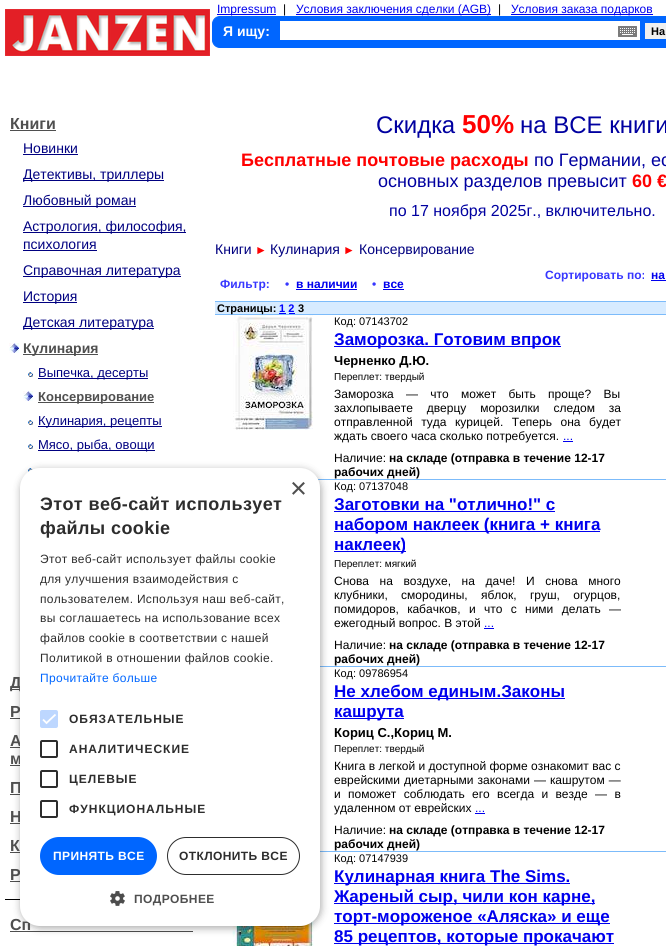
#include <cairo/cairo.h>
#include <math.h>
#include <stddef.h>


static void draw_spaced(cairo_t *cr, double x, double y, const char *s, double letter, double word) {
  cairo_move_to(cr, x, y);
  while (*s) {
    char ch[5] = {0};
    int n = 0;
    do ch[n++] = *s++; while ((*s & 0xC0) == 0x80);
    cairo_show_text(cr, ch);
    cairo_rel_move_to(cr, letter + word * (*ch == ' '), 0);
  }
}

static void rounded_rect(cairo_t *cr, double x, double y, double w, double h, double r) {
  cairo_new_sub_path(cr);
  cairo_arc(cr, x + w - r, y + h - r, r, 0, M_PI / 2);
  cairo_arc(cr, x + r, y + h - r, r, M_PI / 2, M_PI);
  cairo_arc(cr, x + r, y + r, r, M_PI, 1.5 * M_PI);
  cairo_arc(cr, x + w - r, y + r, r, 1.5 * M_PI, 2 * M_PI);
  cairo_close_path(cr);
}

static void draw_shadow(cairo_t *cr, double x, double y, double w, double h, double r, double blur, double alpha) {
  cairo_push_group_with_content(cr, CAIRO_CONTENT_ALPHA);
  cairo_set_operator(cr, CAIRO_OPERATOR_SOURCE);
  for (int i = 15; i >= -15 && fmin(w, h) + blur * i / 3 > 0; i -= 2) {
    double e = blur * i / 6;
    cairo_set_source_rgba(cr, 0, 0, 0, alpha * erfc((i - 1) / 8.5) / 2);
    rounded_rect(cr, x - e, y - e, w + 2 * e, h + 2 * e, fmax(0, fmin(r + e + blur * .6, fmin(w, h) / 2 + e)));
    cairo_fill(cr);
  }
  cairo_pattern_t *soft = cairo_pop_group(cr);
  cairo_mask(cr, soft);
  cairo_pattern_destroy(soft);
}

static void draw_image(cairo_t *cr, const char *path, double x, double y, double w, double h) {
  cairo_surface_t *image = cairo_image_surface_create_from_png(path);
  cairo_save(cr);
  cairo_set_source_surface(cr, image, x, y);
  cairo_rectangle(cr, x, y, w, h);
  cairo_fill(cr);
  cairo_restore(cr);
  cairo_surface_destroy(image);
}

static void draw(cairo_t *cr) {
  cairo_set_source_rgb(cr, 1, 1, 1);
  cairo_paint(cr);
  draw_image(cr, "images/1.png", 5, 9, 205, 47);
  cairo_set_source_rgb(cr, 0, 0, 238 / 255.0);
  cairo_rectangle(cr, 217, 14, 59, 1);
  cairo_fill(cr);
  cairo_rectangle(cr, 296, 14, 195, 1);
  cairo_fill(cr);
  cairo_rectangle(cr, 511, 14, 142, 1);
  cairo_fill(cr);
  cairo_set_source_rgb(cr, 0, 102 / 255.0, 1);
  rounded_rect(cr, 212.5, 16.5, 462, 31, 7.5);
  cairo_fill_preserve(cr);
  cairo_set_line_width(cr, 1);
  cairo_stroke(cr);
  cairo_set_source_rgb(cr, 1, 1, 1);
  cairo_rectangle(cr, 280, 21, 360, 19);
  cairo_fill(cr);
  draw_image(cr, "images/2.png", 618, 26, 19, 11);
  cairo_set_source_rgb(cr, 239 / 255.0, 239 / 255.0, 239 / 255.0);
  cairo_rectangle(cr, 645, 23, 21, 16);
  cairo_fill(cr);
  cairo_set_source_rgb(cr, 79 / 255.0, 79 / 255.0, 79 / 255.0);
  cairo_rectangle(cr, 10, 130, 46, 1);
  cairo_fill(cr);
  cairo_set_source_rgb(cr, 0, 0, 128 / 255.0);
  cairo_rectangle(cr, 23, 154, 55, 1);
  cairo_fill(cr);
  cairo_rectangle(cr, 23, 180, 141, 1);
  cairo_fill(cr);
  cairo_rectangle(cr, 23, 206, 113, 1);
  cairo_fill(cr);
  cairo_rectangle(cr, 23, 232, 163, 1);
  cairo_fill(cr);
  cairo_rectangle(cr, 23, 250, 74, 1);
  cairo_fill(cr);
  cairo_rectangle(cr, 23, 276, 158, 1);
  cairo_fill(cr);
  cairo_rectangle(cr, 23, 302, 54, 1);
  cairo_fill(cr);
  cairo_rectangle(cr, 23, 328, 131, 1);
  cairo_fill(cr);
  draw_image(cr, "images/3.png", 9, 343, 10, 10);
  cairo_set_source_rgb(cr, 79 / 255.0, 79 / 255.0, 79 / 255.0);
  cairo_rectangle(cr, 23, 354, 75, 1);
  cairo_fill(cr);
  draw_image(cr, "images/4.png", 28, 372, 5, 5);
  cairo_set_source_rgb(cr, 0, 0, 128 / 255.0);
  cairo_rectangle(cr, 38, 378, 110, 1);
  cairo_fill(cr);
  draw_image(cr, "images/3.png", 23, 391, 10, 10);
  cairo_set_source_rgb(cr, 79 / 255.0, 79 / 255.0, 79 / 255.0);
  cairo_rectangle(cr, 38, 402, 116, 1);
  cairo_fill(cr);
  draw_image(cr, "images/4.png", 28, 420, 5, 5);
  cairo_set_source_rgb(cr, 0, 0, 128 / 255.0);
  cairo_rectangle(cr, 38, 426, 124, 1);
  cairo_fill(cr);
  draw_image(cr, "images/4.png", 28, 444, 5, 5);
  cairo_rectangle(cr, 38, 450, 117, 1);
  cairo_fill(cr);
  draw_image(cr, "images/5.png", 28, 468, 5, 4);
  cairo_set_source_rgb(cr, 79 / 255.0, 79 / 255.0, 79 / 255.0);
  cairo_rectangle(cr, 10, 689, 10, 1);
  cairo_fill(cr);
  cairo_rectangle(cr, 10, 718, 10, 1);
  cairo_fill(cr);
  cairo_rectangle(cr, 10, 747, 10, 1);
  cairo_fill(cr);
  cairo_rectangle(cr, 10, 765, 10, 1);
  cairo_fill(cr);
  cairo_rectangle(cr, 10, 794, 10, 1);
  cairo_fill(cr);
  cairo_rectangle(cr, 10, 823, 10, 1);
  cairo_fill(cr);
  cairo_rectangle(cr, 10, 852, 10, 1);
  cairo_fill(cr);
  cairo_rectangle(cr, 10, 881, 10, 1);
  cairo_fill(cr);
  cairo_set_source_rgb(cr, 0, 0, 0);
  cairo_rectangle(cr, 5, 899, 15, 1);
  cairo_fill(cr);
  cairo_set_source_rgb(cr, 79 / 255.0, 79 / 255.0, 79 / 255.0);
  cairo_rectangle(cr, 10, 931, 183, 1);
  cairo_fill(cr);
  cairo_set_source_rgb(cr, 0, 0, 238 / 255.0);
  cairo_rectangle(cr, 651, 280, 15, 1);
  cairo_fill(cr);
  cairo_rectangle(cr, 296, 289, 61, 1);
  cairo_fill(cr);
  cairo_rectangle(cr, 383, 289, 21, 1);
  cairo_fill(cr);
  cairo_set_source_rgb(cr, 124 / 255.0, 187 / 255.0, 250 / 255.0);
  cairo_rectangle(cr, 215, 301, 451, 1);
  cairo_fill(cr);
  cairo_set_source_rgb(cr, 215 / 255.0, 235 / 255.0, 1);
  cairo_rectangle(cr, 215, 302, 451, 12);
  cairo_fill(cr);
  cairo_set_source_rgb(cr, 0, 0, 1);
  cairo_rectangle(cr, 279, 313, 7, 1);
  cairo_fill(cr);
  cairo_rectangle(cr, 289, 313, 6, 1);
  cairo_fill(cr);
  cairo_set_source_rgb(cr, 124 / 255.0, 187 / 255.0, 250 / 255.0);
  cairo_rectangle(cr, 215, 314, 451, 1);
  cairo_fill(cr);
  draw_image(cr, "images/6.png", 233, 315, 80, 115);
  cairo_set_source_rgb(cr, 0, 0, 238 / 255.0);
  cairo_rectangle(cr, 334, 346, 227, 1);
  cairo_fill(cr);
  cairo_rectangle(cr, 563, 441, 10, 1);
  cairo_fill(cr);
  cairo_set_source_rgb(cr, 124 / 255.0, 187 / 255.0, 250 / 255.0);
  cairo_rectangle(cr, 317, 479, 349, 1);
  cairo_fill(cr);
  cairo_set_source_rgb(cr, 0, 0, 238 / 255.0);
  cairo_rectangle(cr, 334, 511, 221, 1);
  cairo_fill(cr);
  cairo_rectangle(cr, 334, 531, 266, 1);
  cairo_fill(cr);
  cairo_rectangle(cr, 334, 551, 72, 1);
  cairo_fill(cr);
  cairo_rectangle(cr, 484, 628, 10, 1);
  cairo_fill(cr);
  cairo_set_source_rgb(cr, 124 / 255.0, 187 / 255.0, 250 / 255.0);
  cairo_rectangle(cr, 320, 666, 346, 1);
  cairo_fill(cr);
  cairo_set_source_rgb(cr, 0, 0, 238 / 255.0);
  cairo_rectangle(cr, 334, 698, 231, 1);
  cairo_fill(cr);
  cairo_rectangle(cr, 334, 718, 70, 1);
  cairo_fill(cr);
  cairo_rectangle(cr, 475, 813, 10, 1);
  cairo_fill(cr);
  cairo_set_source_rgb(cr, 124 / 255.0, 187 / 255.0, 250 / 255.0);
  cairo_rectangle(cr, 320, 851, 346, 1);
  cairo_fill(cr);
  draw_image(cr, "images/7.png", 232, 920, 82, 26);
  cairo_set_source_rgb(cr, 0, 0, 238 / 255.0);
  cairo_rectangle(cr, 334, 883, 236, 1);
  cairo_fill(cr);
  cairo_rectangle(cr, 334, 903, 261, 1);
  cairo_fill(cr);
  cairo_rectangle(cr, 334, 923, 276, 1);
  cairo_fill(cr);
  cairo_rectangle(cr, 334, 943, 280, 1);
  cairo_fill(cr);
  cairo_set_source_rgb(cr, 0, 0, 0);
  draw_shadow(cr, 21, 470, 300, 458, 20, 4, 0.35);
  cairo_select_font_face(cr, "Liberation Sans", CAIRO_FONT_SLANT_NORMAL, CAIRO_FONT_WEIGHT_NORMAL);
  cairo_set_font_size(cr, 12);
  cairo_set_source_rgb(cr, 0, 0, 238 / 255.0);
  cairo_move_to(cr, 217, 13);
  cairo_show_text(cr, "Impressum");
  cairo_set_source_rgb(cr, 0, 0, 0);
  cairo_move_to(cr, 283, 13);
  cairo_show_text(cr, "|");
  cairo_set_source_rgb(cr, 0, 0, 238 / 255.0);
  cairo_move_to(cr, 296, 13);
  cairo_show_text(cr, "Условия заключения сделки (AGB)");
  cairo_set_source_rgb(cr, 0, 0, 0);
  cairo_move_to(cr, 498, 13);
  cairo_show_text(cr, "|");
  cairo_set_source_rgb(cr, 0, 0, 238 / 255.0);
  cairo_move_to(cr, 511, 13);
  cairo_show_text(cr, "Условия заказа подарков");
  cairo_select_font_face(cr, "Liberation Sans", CAIRO_FONT_SLANT_NORMAL, CAIRO_FONT_WEIGHT_BOLD);
  cairo_set_font_size(cr, 14);
  cairo_set_source_rgb(cr, 1, 1, 1);
  cairo_move_to(cr, 223, 36);
  cairo_show_text(cr, "Я ищу:");
  cairo_set_font_size(cr, 11);
  cairo_set_source_rgb(cr, 0, 0, 0);
  cairo_move_to(cr, 651, 35);
  cairo_show_text(cr, "На");
  cairo_set_font_size(cr, 16);
  cairo_set_source_rgb(cr, 79 / 255.0, 79 / 255.0, 79 / 255.0);
  cairo_move_to(cr, 10, 129);
  cairo_show_text(cr, "Книги");
  cairo_select_font_face(cr, "Liberation Sans", CAIRO_FONT_SLANT_NORMAL, CAIRO_FONT_WEIGHT_NORMAL);
  cairo_set_font_size(cr, 14);
  cairo_set_source_rgb(cr, 0, 0, 128 / 255.0);
  cairo_move_to(cr, 23, 153);
  cairo_show_text(cr, "Новинки");
  cairo_move_to(cr, 23, 179);
  cairo_show_text(cr, "Детективы, триллеры");
  cairo_move_to(cr, 23, 205);
  cairo_show_text(cr, "Любовный роман");
  cairo_move_to(cr, 23, 231);
  cairo_show_text(cr, "Астрология, философия,");
  cairo_move_to(cr, 23, 249);
  cairo_show_text(cr, "психология");
  cairo_move_to(cr, 23, 275);
  cairo_show_text(cr, "Справочная литература");
  cairo_move_to(cr, 23, 301);
  cairo_show_text(cr, "История");
  cairo_move_to(cr, 23, 327);
  cairo_show_text(cr, "Детская литература");
  cairo_select_font_face(cr, "Liberation Sans", CAIRO_FONT_SLANT_NORMAL, CAIRO_FONT_WEIGHT_BOLD);
  cairo_set_source_rgb(cr, 79 / 255.0, 79 / 255.0, 79 / 255.0);
  cairo_move_to(cr, 23, 353);
  cairo_show_text(cr, "Кулинария");
  cairo_select_font_face(cr, "Liberation Sans", CAIRO_FONT_SLANT_NORMAL, CAIRO_FONT_WEIGHT_NORMAL);
  cairo_set_font_size(cr, 13);
  cairo_set_source_rgb(cr, 0, 0, 128 / 255.0);
  cairo_move_to(cr, 38, 377);
  cairo_show_text(cr, "Выпечка, десерты");
  cairo_select_font_face(cr, "Liberation Sans", CAIRO_FONT_SLANT_NORMAL, CAIRO_FONT_WEIGHT_BOLD);
  cairo_set_source_rgb(cr, 79 / 255.0, 79 / 255.0, 79 / 255.0);
  cairo_move_to(cr, 38, 401);
  cairo_show_text(cr, "Консервирование");
  cairo_select_font_face(cr, "Liberation Sans", CAIRO_FONT_SLANT_NORMAL, CAIRO_FONT_WEIGHT_NORMAL);
  cairo_set_source_rgb(cr, 0, 0, 128 / 255.0);
  cairo_move_to(cr, 38, 425);
  cairo_show_text(cr, "Кулинария, рецепты");
  cairo_move_to(cr, 38, 449);
  cairo_show_text(cr, "Мясо, рыба, овощи");
  cairo_select_font_face(cr, "Liberation Sans", CAIRO_FONT_SLANT_NORMAL, CAIRO_FONT_WEIGHT_BOLD);
  cairo_set_font_size(cr, 16);
  cairo_set_source_rgb(cr, 79 / 255.0, 79 / 255.0, 79 / 255.0);
  cairo_move_to(cr, 10, 688);
  cairo_show_text(cr, "Д");
  cairo_move_to(cr, 10, 717);
  cairo_show_text(cr, "Р");
  cairo_move_to(cr, 10, 746);
  cairo_show_text(cr, "А");
  cairo_move_to(cr, 10, 764);
  cairo_show_text(cr, "м");
  cairo_move_to(cr, 10, 793);
  cairo_show_text(cr, "П");
  cairo_move_to(cr, 10, 822);
  cairo_show_text(cr, "Н");
  cairo_move_to(cr, 10, 851);
  cairo_show_text(cr, "К");
  cairo_move_to(cr, 10, 880);
  cairo_show_text(cr, "Р");
  cairo_move_to(cr, 10, 930);
  cairo_show_text(cr, "Сп");
  cairo_select_font_face(cr, "Liberation Sans", CAIRO_FONT_SLANT_NORMAL, CAIRO_FONT_WEIGHT_NORMAL);
  cairo_set_font_size(cr, 24);
  cairo_set_source_rgb(cr, 0, 0, 160 / 255.0);
  cairo_move_to(cr, 376, 133);
  cairo_show_text(cr, "Скидка");
  cairo_select_font_face(cr, "Liberation Sans", CAIRO_FONT_SLANT_NORMAL, CAIRO_FONT_WEIGHT_BOLD);
  cairo_set_font_size(cr, 26);
  cairo_set_source_rgb(cr, 1, 0, 0);
  cairo_move_to(cr, 462, 133);
  cairo_show_text(cr, "50%");
  cairo_select_font_face(cr, "Liberation Sans", CAIRO_FONT_SLANT_NORMAL, CAIRO_FONT_WEIGHT_NORMAL);
  cairo_set_font_size(cr, 24);
  cairo_set_source_rgb(cr, 0, 0, 160 / 255.0);
  cairo_move_to(cr, 520, 133);
  cairo_show_text(cr, "на ВСЕ книги");
  cairo_select_font_face(cr, "Liberation Sans", CAIRO_FONT_SLANT_NORMAL, CAIRO_FONT_WEIGHT_BOLD);
  cairo_set_font_size(cr, 18);
  cairo_set_source_rgb(cr, 1, 0, 0);
  cairo_move_to(cr, 241, 166);
  cairo_show_text(cr, "Бесплатные почтовые расходы");
  cairo_select_font_face(cr, "Liberation Sans", CAIRO_FONT_SLANT_NORMAL, CAIRO_FONT_WEIGHT_NORMAL);
  cairo_set_source_rgb(cr, 0, 0, 160 / 255.0);
  cairo_move_to(cr, 534, 166);
  cairo_show_text(cr, "по Германии, ес");
  cairo_move_to(cr, 378, 187);
  cairo_show_text(cr, "основных разделов превысит");
  cairo_select_font_face(cr, "Liberation Sans", CAIRO_FONT_SLANT_NORMAL, CAIRO_FONT_WEIGHT_BOLD);
  cairo_set_source_rgb(cr, 1, 0, 0);
  cairo_move_to(cr, 632, 187);
  cairo_show_text(cr, "60 €");
  cairo_select_font_face(cr, "Liberation Sans", CAIRO_FONT_SLANT_NORMAL, CAIRO_FONT_WEIGHT_NORMAL);
  cairo_set_font_size(cr, 16);
  cairo_set_source_rgb(cr, 0, 0, 160 / 255.0);
  cairo_move_to(cr, 389, 216);
  cairo_show_text(cr, "по 17 ноября 2025г., включительно.");
  cairo_set_font_size(cr, 14);
  cairo_set_source_rgb(cr, 0, 0, 128 / 255.0);
  cairo_move_to(cr, 215, 254);
  cairo_show_text(cr, "Книги");
  cairo_set_font_size(cr, 12);
  cairo_set_source_rgb(cr, 1, 0, 0);
  cairo_move_to(cr, 255, 254);
  cairo_show_text(cr, "►");
  cairo_set_font_size(cr, 14);
  cairo_set_source_rgb(cr, 0, 0, 128 / 255.0);
  cairo_move_to(cr, 270, 254);
  cairo_show_text(cr, "Кулинария");
  cairo_set_font_size(cr, 12);
  cairo_set_source_rgb(cr, 1, 0, 0);
  cairo_move_to(cr, 343, 254);
  cairo_show_text(cr, "►");
  cairo_set_font_size(cr, 14);
  cairo_set_source_rgb(cr, 0, 0, 128 / 255.0);
  cairo_move_to(cr, 359, 254);
  cairo_show_text(cr, "Консервирование");
  cairo_select_font_face(cr, "Liberation Sans", CAIRO_FONT_SLANT_NORMAL, CAIRO_FONT_WEIGHT_BOLD);
  cairo_set_font_size(cr, 12);
  cairo_set_source_rgb(cr, 55 / 255.0, 55 / 255.0, 1);
  cairo_move_to(cr, 545, 279);
  cairo_show_text(cr, "Сортировать по:");
  cairo_set_source_rgb(cr, 0, 0, 238 / 255.0);
  cairo_move_to(cr, 651, 279);
  cairo_show_text(cr, "на");
  cairo_set_source_rgb(cr, 55 / 255.0, 55 / 255.0, 1);
  cairo_move_to(cr, 220, 288);
  cairo_show_text(cr, "Фильтр:");
  cairo_move_to(cr, 285, 288);
  cairo_show_text(cr, "•");
  cairo_set_source_rgb(cr, 0, 0, 238 / 255.0);
  cairo_move_to(cr, 296, 288);
  cairo_show_text(cr, "в наличии");
  cairo_set_source_rgb(cr, 55 / 255.0, 55 / 255.0, 1);
  cairo_move_to(cr, 372, 288);
  cairo_show_text(cr, "•");
  cairo_set_source_rgb(cr, 0, 0, 238 / 255.0);
  cairo_move_to(cr, 383, 288);
  cairo_show_text(cr, "все");
  cairo_set_font_size(cr, 11);
  cairo_set_source_rgb(cr, 0, 0, 0);
  cairo_move_to(cr, 217, 312);
  cairo_show_text(cr, "Страницы:");
  cairo_set_source_rgb(cr, 0, 0, 1);
  cairo_move_to(cr, 279, 312);
  cairo_show_text(cr, "1 2");
  cairo_set_source_rgb(cr, 0, 0, 0);
  cairo_move_to(cr, 298, 312);
  cairo_show_text(cr, "3");
  cairo_select_font_face(cr, "Liberation Sans", CAIRO_FONT_SLANT_NORMAL, CAIRO_FONT_WEIGHT_NORMAL);
  cairo_move_to(cr, 334, 325);
  cairo_show_text(cr, "Код: 07143702");
  cairo_select_font_face(cr, "Liberation Sans", CAIRO_FONT_SLANT_NORMAL, CAIRO_FONT_WEIGHT_BOLD);
  cairo_set_font_size(cr, 17);
  cairo_set_source_rgb(cr, 0, 0, 238 / 255.0);
  cairo_move_to(cr, 334, 345);
  cairo_show_text(cr, "Заморозка. Готовим впрок");
  cairo_set_font_size(cr, 13);
  cairo_set_source_rgb(cr, 0, 0, 0);
  cairo_move_to(cr, 334, 365);
  cairo_show_text(cr, "Черненко Д.Ю.");
  cairo_select_font_face(cr, "Liberation Sans", CAIRO_FONT_SLANT_NORMAL, CAIRO_FONT_WEIGHT_NORMAL);
  cairo_set_font_size(cr, 10);
  cairo_move_to(cr, 334, 380);
  cairo_show_text(cr, "Переплет: твердый");
  cairo_set_font_size(cr, 12);
  draw_spaced(cr, 334, 398, "Заморозка — что может быть проще? Вы", 0, 9);
  draw_spaced(cr, 334, 412, "захлопываете дверцу морозилки следом за", 0, 10.5);
  draw_spaced(cr, 334, 426, "отправленной туда курицей. Теперь она будет", 0, 5.25);
  cairo_move_to(cr, 334, 440);
  cairo_show_text(cr, "ждать своего часа сколько потребуется.");
  cairo_set_source_rgb(cr, 0, 0, 238 / 255.0);
  cairo_move_to(cr, 563, 440);
  cairo_show_text(cr, "...");
  cairo_set_source_rgb(cr, 0, 0, 0);
  cairo_move_to(cr, 334, 462);
  cairo_show_text(cr, "Наличие:");
  cairo_select_font_face(cr, "Liberation Sans", CAIRO_FONT_SLANT_NORMAL, CAIRO_FONT_WEIGHT_BOLD);
  cairo_move_to(cr, 389, 462);
  cairo_show_text(cr, "на складе (отправка в течение 12-17");
  cairo_move_to(cr, 334, 476);
  cairo_show_text(cr, "рабочих дней)");
  cairo_select_font_face(cr, "Liberation Sans", CAIRO_FONT_SLANT_NORMAL, CAIRO_FONT_WEIGHT_NORMAL);
  cairo_set_font_size(cr, 11);
  cairo_move_to(cr, 334, 490);
  cairo_show_text(cr, "Код: 07137048");
  cairo_select_font_face(cr, "Liberation Sans", CAIRO_FONT_SLANT_NORMAL, CAIRO_FONT_WEIGHT_BOLD);
  cairo_set_font_size(cr, 17);
  cairo_set_source_rgb(cr, 0, 0, 238 / 255.0);
  cairo_move_to(cr, 334, 510);
  cairo_show_text(cr, "Заготовки на \"отлично!\" с");
  cairo_move_to(cr, 334, 530);
  cairo_show_text(cr, "набором наклеек (книга + книга");
  cairo_move_to(cr, 334, 550);
  cairo_show_text(cr, "наклеек)");
  cairo_select_font_face(cr, "Liberation Sans", CAIRO_FONT_SLANT_NORMAL, CAIRO_FONT_WEIGHT_NORMAL);
  cairo_set_font_size(cr, 10);
  cairo_set_source_rgb(cr, 0, 0, 0);
  cairo_move_to(cr, 334, 567);
  cairo_show_text(cr, "Переплет: мягкий");
  cairo_set_font_size(cr, 12);
  draw_spaced(cr, 334, 585, "Снова на воздухе, на даче! И снова много", 0, 7.25);
  draw_spaced(cr, 334, 599, "клубники, смородины, яблок, груш, огурцов,", 0, 10);
  draw_spaced(cr, 334, 613, "помидоров, кабачков, и что с ними делать —", 0, 5);
  cairo_move_to(cr, 334, 627);
  cairo_show_text(cr, "ежегодный вопрос. В этой");
  cairo_set_source_rgb(cr, 0, 0, 238 / 255.0);
  cairo_move_to(cr, 484, 627);
  cairo_show_text(cr, "...");
  cairo_set_source_rgb(cr, 0, 0, 0);
  cairo_move_to(cr, 334, 649);
  cairo_show_text(cr, "Наличие:");
  cairo_select_font_face(cr, "Liberation Sans", CAIRO_FONT_SLANT_NORMAL, CAIRO_FONT_WEIGHT_BOLD);
  cairo_move_to(cr, 389, 649);
  cairo_show_text(cr, "на складе (отправка в течение 12-17");
  cairo_move_to(cr, 334, 663);
  cairo_show_text(cr, "рабочих дней)");
  cairo_select_font_face(cr, "Liberation Sans", CAIRO_FONT_SLANT_NORMAL, CAIRO_FONT_WEIGHT_NORMAL);
  cairo_set_font_size(cr, 11);
  cairo_move_to(cr, 334, 677);
  cairo_show_text(cr, "Код: 09786954");
  cairo_select_font_face(cr, "Liberation Sans", CAIRO_FONT_SLANT_NORMAL, CAIRO_FONT_WEIGHT_BOLD);
  cairo_set_font_size(cr, 17);
  cairo_set_source_rgb(cr, 0, 0, 238 / 255.0);
  cairo_move_to(cr, 334, 697);
  cairo_show_text(cr, "Не хлебом единым.Законы");
  cairo_move_to(cr, 334, 717);
  cairo_show_text(cr, "кашрута");
  cairo_set_font_size(cr, 13);
  cairo_set_source_rgb(cr, 0, 0, 0);
  cairo_move_to(cr, 334, 737);
  cairo_show_text(cr, "Кориц С.,Кориц М.");
  cairo_select_font_face(cr, "Liberation Sans", CAIRO_FONT_SLANT_NORMAL, CAIRO_FONT_WEIGHT_NORMAL);
  cairo_set_font_size(cr, 10);
  cairo_move_to(cr, 334, 752);
  cairo_show_text(cr, "Переплет: твердый");
  cairo_set_font_size(cr, 12);
  cairo_move_to(cr, 334, 770);
  cairo_show_text(cr, "Книга в легкой и доступной форме ознакомит вас с");
  draw_spaced(cr, 334, 784, "еврейскими диетарными законами — кашрутом —", 0, 0.75);
  draw_spaced(cr, 334, 798, "и поможет соблюдать его всегда и везде — в", 0, 4);
  cairo_move_to(cr, 334, 812);
  cairo_show_text(cr, "удаленном от еврейских");
  cairo_set_source_rgb(cr, 0, 0, 238 / 255.0);
  cairo_move_to(cr, 475, 812);
  cairo_show_text(cr, "...");
  cairo_set_source_rgb(cr, 0, 0, 0);
  cairo_move_to(cr, 334, 834);
  cairo_show_text(cr, "Наличие:");
  cairo_select_font_face(cr, "Liberation Sans", CAIRO_FONT_SLANT_NORMAL, CAIRO_FONT_WEIGHT_BOLD);
  cairo_move_to(cr, 389, 834);
  cairo_show_text(cr, "на складе (отправка в течение 12-17");
  cairo_move_to(cr, 334, 848);
  cairo_show_text(cr, "рабочих дней)");
  cairo_select_font_face(cr, "Liberation Sans", CAIRO_FONT_SLANT_NORMAL, CAIRO_FONT_WEIGHT_NORMAL);
  cairo_set_font_size(cr, 11);
  cairo_move_to(cr, 334, 862);
  cairo_show_text(cr, "Код: 07147939");
  cairo_select_font_face(cr, "Liberation Sans", CAIRO_FONT_SLANT_NORMAL, CAIRO_FONT_WEIGHT_BOLD);
  cairo_set_font_size(cr, 17);
  cairo_set_source_rgb(cr, 0, 0, 238 / 255.0);
  cairo_move_to(cr, 334, 882);
  cairo_show_text(cr, "Кулинарная книга The Sims.");
  cairo_move_to(cr, 334, 902);
  cairo_show_text(cr, "Жареный сыр, чили кон карне,");
  cairo_move_to(cr, 334, 922);
  cairo_show_text(cr, "торт-мороженое «Аляска» и еще");
  cairo_move_to(cr, 334, 942);
  cairo_show_text(cr, "85 рецептов, которые прокачают");
  cairo_set_source_rgb(cr, 1, 1, 1);
  rounded_rect(cr, 20, 468, 300, 458, 20);
  cairo_fill(cr);
  cairo_select_font_face(cr, "Liberation Sans", CAIRO_FONT_SLANT_NORMAL, CAIRO_FONT_WEIGHT_NORMAL);
  cairo_set_font_size(cr, 29);
  cairo_set_source_rgb(cr, 79 / 255.0, 79 / 255.0, 79 / 255.0);
  cairo_move_to(cr, 290, 498);
  cairo_show_text(cr, "×");
  cairo_select_font_face(cr, "Liberation Sans", CAIRO_FONT_SLANT_NORMAL, CAIRO_FONT_WEIGHT_BOLD);
  cairo_set_font_size(cr, 18);
  cairo_set_source_rgb(cr, 45 / 255.0, 45 / 255.0, 45 / 255.0);
  draw_spaced(cr, 40, 510, "Этот веб-сайт использует", 0.4, 0);
  draw_spaced(cr, 40, 534, "файлы cookie", 0.4, 0);
  cairo_select_font_face(cr, "Liberation Sans", CAIRO_FONT_SLANT_NORMAL, CAIRO_FONT_WEIGHT_NORMAL);
  cairo_set_font_size(cr, 12);
  draw_spaced(cr, 40, 563, "Этот веб-сайт использует файлы cookie", 0.3, 0);
  draw_spaced(cr, 40, 583, "для улучшения взаимодействия с", 0.3, 0);
  draw_spaced(cr, 40, 603, "пользователем. Используя наш веб-сайт,", 0.3, 0);
  draw_spaced(cr, 40, 622, "вы соглашаетесь на использование всех", 0.3, 0);
  draw_spaced(cr, 40, 642, "файлов cookie в соответствии с нашей", 0.3, 0);
  draw_spaced(cr, 40, 662, "Политикой в отношении файлов cookie.", 0.3, 0);
  cairo_set_source_rgb(cr, 0, 102 / 255.0, 1);
  draw_spaced(cr, 40, 682, "Прочитайте больше", 0.3, 0);
  cairo_set_source_rgb(cr, 189 / 255.0, 215 / 255.0, 1);
  rounded_rect(cr, 40, 710, 18, 18, 2);
  cairo_fill(cr);
  cairo_new_path(cr);
  cairo_move_to(cr, 43, 719.5);
  cairo_line_to(cr, 46.5, 723);
  cairo_line_to(cr, 55.5, 714.5);
  cairo_set_source_rgb(cr, 1, 1, 1);
  cairo_set_line_width(cr, 1.8);
  cairo_stroke(cr);
  cairo_select_font_face(cr, "Liberation Sans", CAIRO_FONT_SLANT_NORMAL, CAIRO_FONT_WEIGHT_BOLD);
  cairo_set_source_rgb(cr, 45 / 255.0, 45 / 255.0, 45 / 255.0);
  draw_spaced(cr, 69, 723, "ОБЯЗАТЕЛЬНЫЕ", 1, 0);
  rounded_rect(cr, 41, 741, 16, 16, 1);
  cairo_set_line_width(cr, 2);
  cairo_stroke(cr);
  draw_spaced(cr, 69, 753, "АНАЛИТИЧЕСКИЕ", 1, 0);
  rounded_rect(cr, 41, 771, 16, 16, 1);
  cairo_stroke(cr);
  draw_spaced(cr, 69, 783, "ЦЕЛЕВЫЕ", 1, 0);
  rounded_rect(cr, 41, 801, 16, 16, 1);
  cairo_stroke(cr);
  draw_spaced(cr, 69, 813, "ФУНКЦИОНАЛЬНЫЕ", 1, 0);
  cairo_set_source_rgb(cr, 0, 102 / 255.0, 1);
  rounded_rect(cr, 40, 837, 117, 38, 19);
  cairo_fill(cr);
  cairo_set_source_rgb(cr, 1, 1, 1);
  draw_spaced(cr, 53, 860, "ПРИНЯТЬ ВСЕ", 0.4, 0);
  rounded_rect(cr, 167.5, 837.5, 132, 37, 18.5);
  cairo_set_source_rgb(cr, 45 / 255.0, 45 / 255.0, 45 / 255.0);
  cairo_set_line_width(cr, 1);
  cairo_stroke(cr);
  draw_spaced(cr, 179, 860, "ОТКЛОНИТЬ ВСЕ", 0.4, 0);
  draw_image(cr, "images/8.png", 110, 891, 15, 15);
  cairo_set_source_rgb(cr, 79 / 255.0, 79 / 255.0, 79 / 255.0);
  draw_spaced(cr, 134, 903, "ПОДРОБНЕЕ", 0.4, 0);
}

int main(void) {
  cairo_surface_t *surface = cairo_image_surface_create(CAIRO_FORMAT_RGB24, 666, 946);
  cairo_t *cr = cairo_create(surface);
  cairo_font_options_t *options = cairo_font_options_create();
  cairo_font_options_set_hint_metrics(options, CAIRO_HINT_METRICS_OFF);
  cairo_font_options_set_hint_style(options, CAIRO_HINT_STYLE_NONE);
  cairo_set_font_options(cr, options);
  cairo_set_miter_limit(cr, 4);
  draw(cr);
  cairo_surface_write_to_png(surface, "out.png");
  cairo_font_options_destroy(options);
  cairo_destroy(cr);
  cairo_surface_destroy(surface);
  return 0;
}
